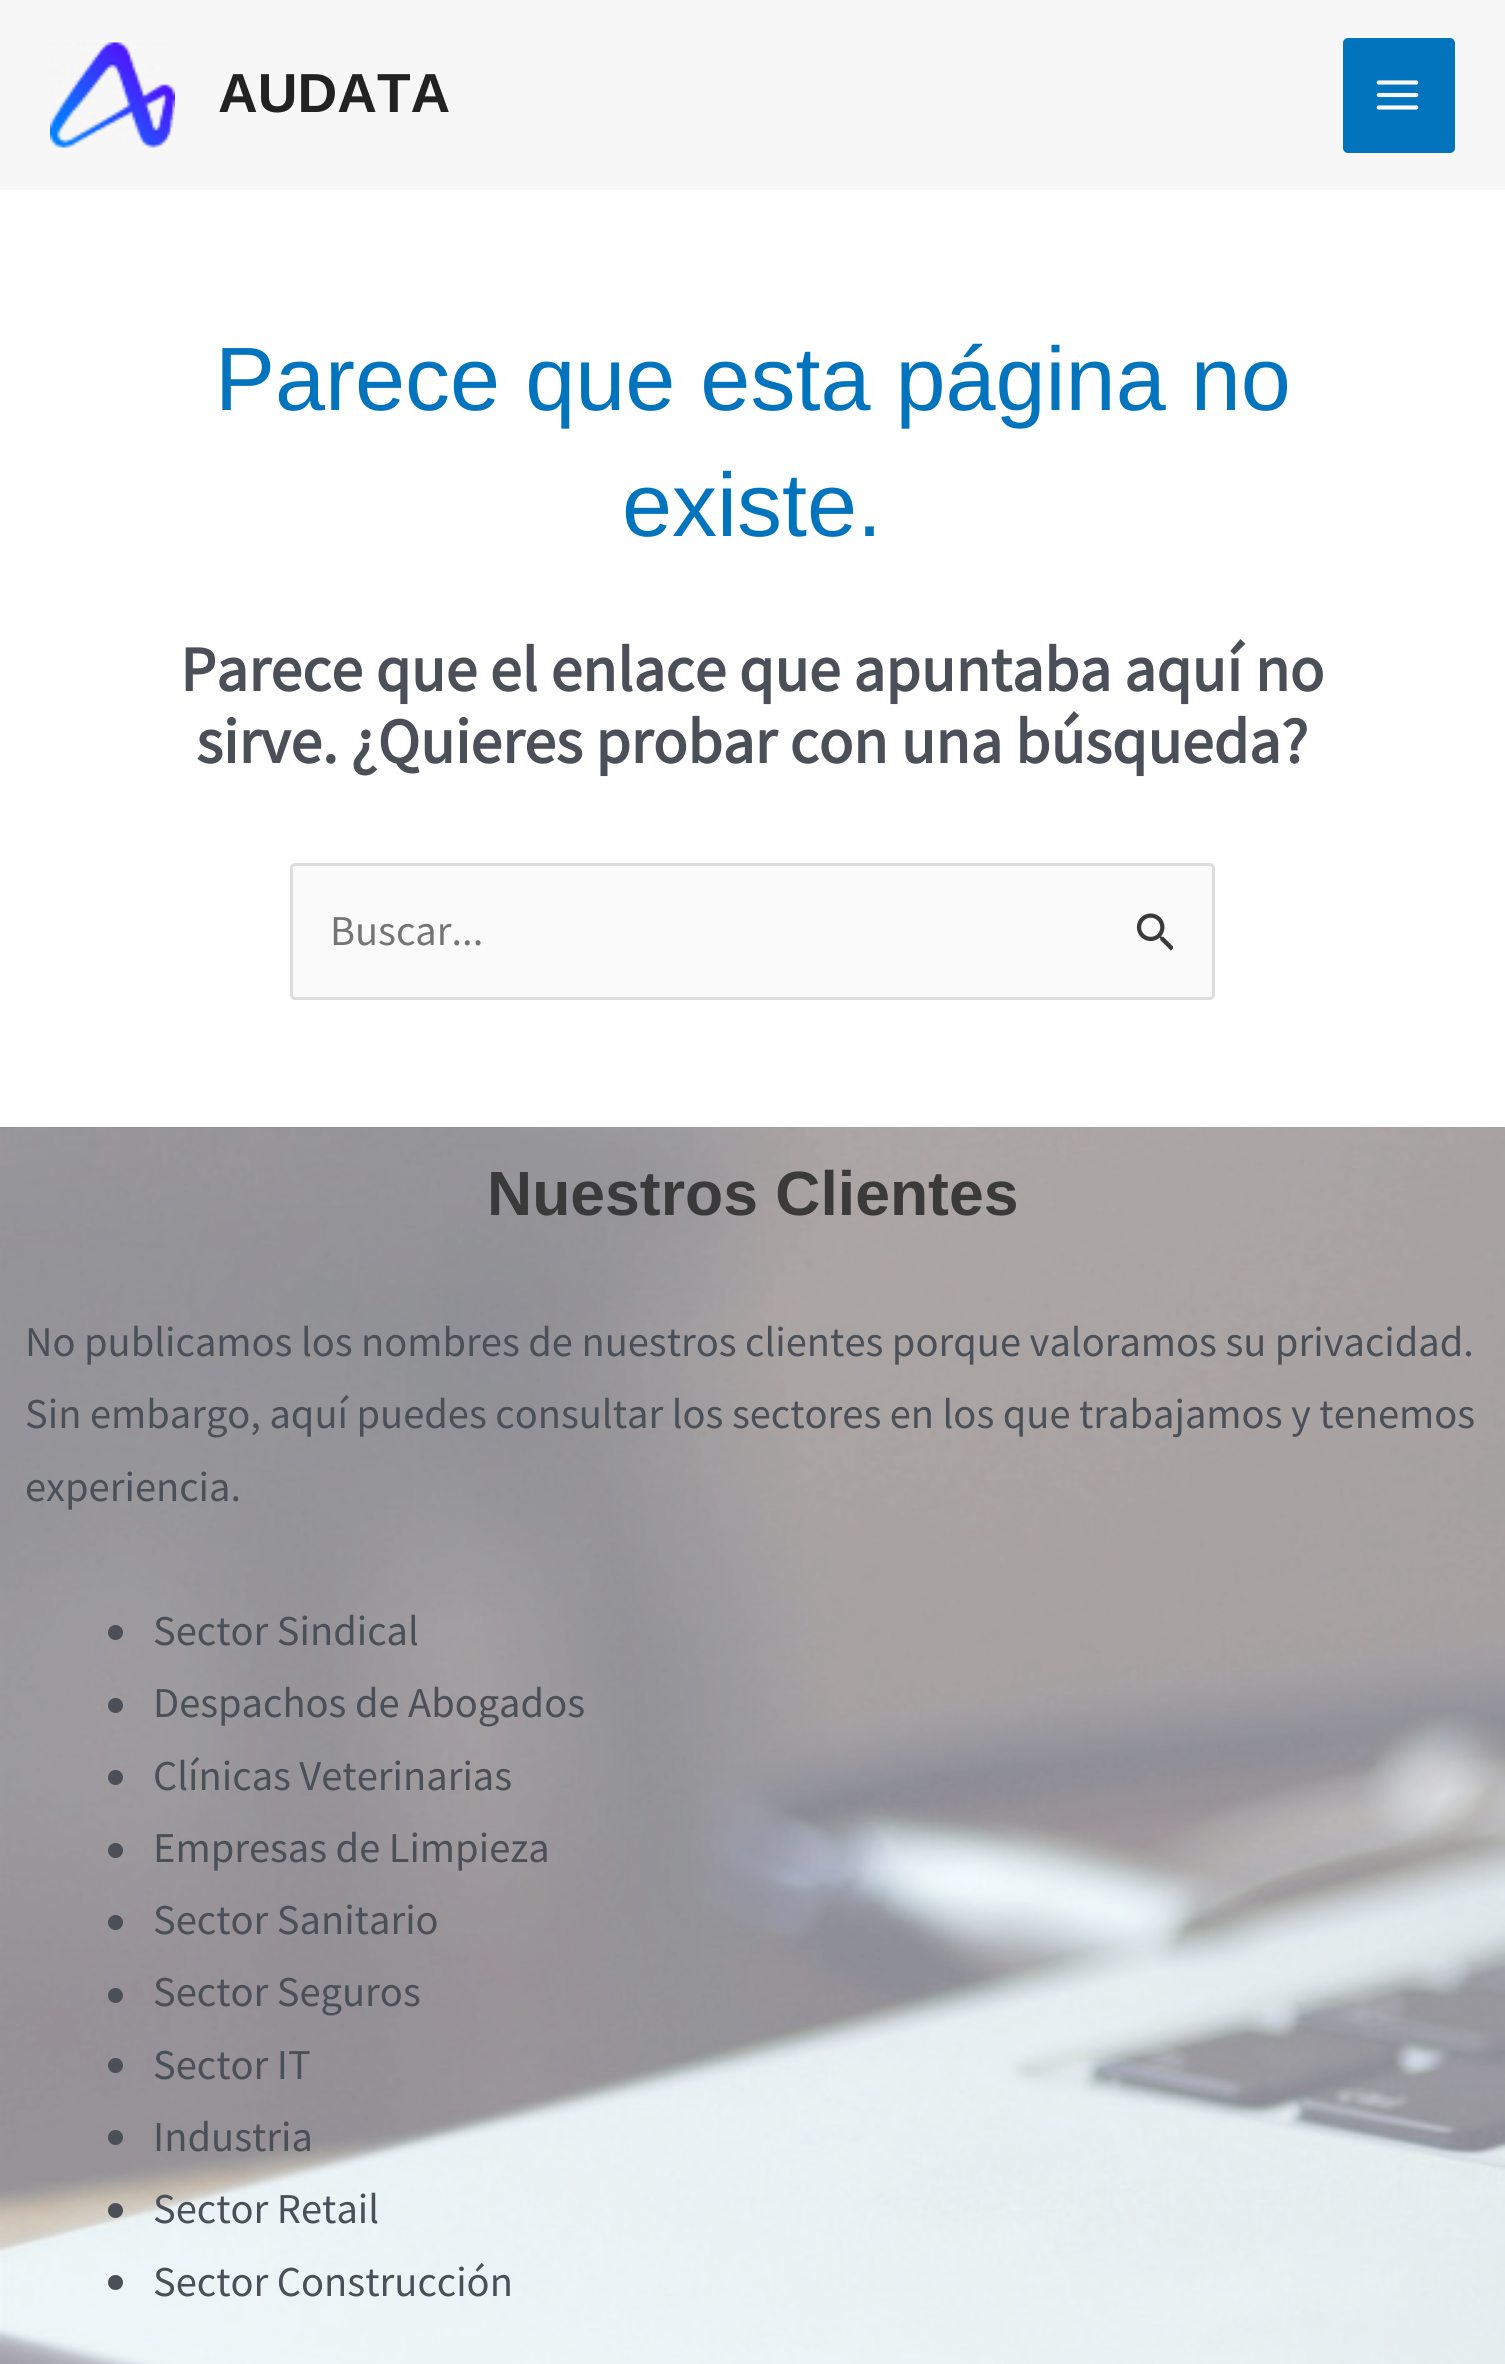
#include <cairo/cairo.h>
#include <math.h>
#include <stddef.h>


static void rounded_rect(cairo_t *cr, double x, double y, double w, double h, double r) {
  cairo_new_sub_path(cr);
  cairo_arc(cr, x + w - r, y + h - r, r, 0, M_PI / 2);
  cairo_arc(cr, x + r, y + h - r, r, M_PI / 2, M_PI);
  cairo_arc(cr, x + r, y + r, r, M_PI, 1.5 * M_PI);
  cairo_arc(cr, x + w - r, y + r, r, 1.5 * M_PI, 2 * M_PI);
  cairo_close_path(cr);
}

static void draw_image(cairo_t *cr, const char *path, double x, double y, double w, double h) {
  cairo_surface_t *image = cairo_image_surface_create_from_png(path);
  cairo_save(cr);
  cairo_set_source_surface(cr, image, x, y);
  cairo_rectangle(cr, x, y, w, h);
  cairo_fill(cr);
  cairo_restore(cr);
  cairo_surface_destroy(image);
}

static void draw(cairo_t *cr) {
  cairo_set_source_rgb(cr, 1, 1, 1);
  cairo_paint(cr);
  cairo_set_source_rgb(cr, 247 / 255.0, 247 / 255.0, 247 / 255.0);
  cairo_rectangle(cr, 0, 0, 1505, 190);
  cairo_fill(cr);
  draw_image(cr, "images/1.png", 50, 42, 125, 106);
  cairo_set_source_rgb(cr, 2 / 255.0, 116 / 255.0, 190 / 255.0);
  rounded_rect(cr, 1343, 38, 112, 115, 5);
  cairo_fill(cr);
  draw_image(cr, "images/2.png", 1376, 80, 43, 30);
  cairo_set_source_rgb(cr, 250 / 255.0, 250 / 255.0, 250 / 255.0);
  rounded_rect(cr, 291.5, 864.5, 922, 134, 3.5);
  cairo_fill_preserve(cr);
  cairo_set_source_rgb(cr, 221 / 255.0, 221 / 255.0, 221 / 255.0);
  cairo_set_line_width(cr, 3);
  cairo_stroke(cr);
  draw_image(cr, "images/3.png", 1136, 913, 37, 38);
  draw_image(cr, "images/4.png", 0, 1127, 1505, 1237);
  cairo_set_source_rgb(cr, 75 / 255.0, 79 / 255.0, 88 / 255.0);
  cairo_arc(cr, 115.5, 1632.5, 7.5, 0, 2 * M_PI);
  cairo_fill(cr);
  cairo_arc(cr, 115.5, 1705.5, 7.5, 0, 2 * M_PI);
  cairo_fill(cr);
  cairo_arc(cr, 115.5, 1777.5, 7.5, 0, 2 * M_PI);
  cairo_fill(cr);
  cairo_arc(cr, 115.5, 1850.5, 7.5, 0, 2 * M_PI);
  cairo_fill(cr);
  cairo_arc(cr, 115.5, 1922.5, 7.5, 0, 2 * M_PI);
  cairo_fill(cr);
  cairo_arc(cr, 115.5, 1995.5, 7.5, 0, 2 * M_PI);
  cairo_fill(cr);
  cairo_arc(cr, 115.5, 2065.5, 7.5, 0, 2 * M_PI);
  cairo_fill(cr);
  cairo_arc(cr, 115.5, 2137.5, 7.5, 0, 2 * M_PI);
  cairo_fill(cr);
  cairo_arc(cr, 115.5, 2210.5, 7.5, 0, 2 * M_PI);
  cairo_fill(cr);
  cairo_arc(cr, 115.5, 2282.5, 7.5, 0, 2 * M_PI);
  cairo_fill(cr);
  cairo_select_font_face(cr, "Liberation Sans", CAIRO_FONT_SLANT_NORMAL, CAIRO_FONT_WEIGHT_BOLD);
  cairo_set_font_size(cr, 55);
  cairo_set_source_rgb(cr, 34 / 255.0, 34 / 255.0, 34 / 255.0);
  cairo_move_to(cr, 218, 112);
  cairo_show_text(cr, "AUDATA");
  cairo_select_font_face(cr, "Liberation Sans", CAIRO_FONT_SLANT_NORMAL, CAIRO_FONT_WEIGHT_NORMAL);
  cairo_set_font_size(cr, 90);
  cairo_set_source_rgb(cr, 2 / 255.0, 116 / 255.0, 190 / 255.0);
  cairo_move_to(cr, 215, 410);
  cairo_show_text(cr, "Parece que esta página no");
  cairo_move_to(cr, 622, 536);
  cairo_show_text(cr, "existe.");
  cairo_select_font_face(cr, "Source Sans Pro", CAIRO_FONT_SLANT_NORMAL, CAIRO_FONT_WEIGHT_BOLD);
  cairo_set_font_size(cr, 63.75);
  cairo_set_source_rgb(cr, 75 / 255.0, 79 / 255.0, 88 / 255.0);
  cairo_move_to(cr, 180, 691);
  cairo_show_text(cr, "Parece que el enlace que apuntaba aquí no");
  cairo_move_to(cr, 196, 763);
  cairo_show_text(cr, "sirve. ¿Quieres probar con una búsqueda?");
  cairo_select_font_face(cr, "Source Sans Pro", CAIRO_FONT_SLANT_NORMAL, CAIRO_FONT_WEIGHT_NORMAL);
  cairo_set_font_size(cr, 42.5);
  cairo_set_source_rgb(cr, 117 / 255.0, 117 / 255.0, 117 / 255.0);
  cairo_move_to(cr, 330, 945);
  cairo_show_text(cr, "Buscar...");
  cairo_select_font_face(cr, "Liberation Sans", CAIRO_FONT_SLANT_NORMAL, CAIRO_FONT_WEIGHT_BOLD);
  cairo_set_font_size(cr, 62.5);
  cairo_set_source_rgb(cr, 58 / 255.0, 58 / 255.0, 58 / 255.0);
  cairo_move_to(cr, 487, 1215);
  cairo_show_text(cr, "Nuestros Clientes");
  cairo_select_font_face(cr, "Source Sans Pro", CAIRO_FONT_SLANT_NORMAL, CAIRO_FONT_WEIGHT_NORMAL);
  cairo_set_font_size(cr, 42.5);
  cairo_set_source_rgb(cr, 75 / 255.0, 79 / 255.0, 88 / 255.0);
  cairo_move_to(cr, 25, 1356);
  cairo_show_text(cr, "No publicamos los nombres de nuestros clientes porque valoramos su privacidad.");
  cairo_move_to(cr, 25, 1428);
  cairo_show_text(cr, "Sin embargo, aquí puedes consultar los sectores en los que trabajamos y tenemos");
  cairo_move_to(cr, 25, 1501);
  cairo_show_text(cr, "experiencia.");
  cairo_move_to(cr, 153, 1645);
  cairo_show_text(cr, "Sector Sindical");
  cairo_move_to(cr, 153, 1717);
  cairo_show_text(cr, "Despachos de Abogados");
  cairo_move_to(cr, 153, 1790);
  cairo_show_text(cr, "Clínicas Veterinarias");
  cairo_move_to(cr, 153, 1862);
  cairo_show_text(cr, "Empresas de Limpieza");
  cairo_move_to(cr, 153, 1934);
  cairo_show_text(cr, "Sector Sanitario");
  cairo_move_to(cr, 153, 2006);
  cairo_show_text(cr, "Sector Seguros");
  cairo_move_to(cr, 153, 2079);
  cairo_show_text(cr, "Sector IT");
  cairo_move_to(cr, 153, 2151);
  cairo_show_text(cr, "Industria");
  cairo_move_to(cr, 153, 2223);
  cairo_show_text(cr, "Sector Retail");
  cairo_move_to(cr, 153, 2296);
  cairo_show_text(cr, "Sector Construcción");
}

int main(void) {
  cairo_surface_t *surface = cairo_image_surface_create(CAIRO_FORMAT_RGB24, 1505, 2364);
  cairo_t *cr = cairo_create(surface);
  cairo_font_options_t *options = cairo_font_options_create();
  cairo_font_options_set_hint_metrics(options, CAIRO_HINT_METRICS_OFF);
  cairo_font_options_set_hint_style(options, CAIRO_HINT_STYLE_NONE);
  cairo_set_font_options(cr, options);
  cairo_set_miter_limit(cr, 4);
  draw(cr);
  cairo_surface_write_to_png(surface, "out.png");
  cairo_font_options_destroy(options);
  cairo_destroy(cr);
  cairo_surface_destroy(surface);
  return 0;
}
